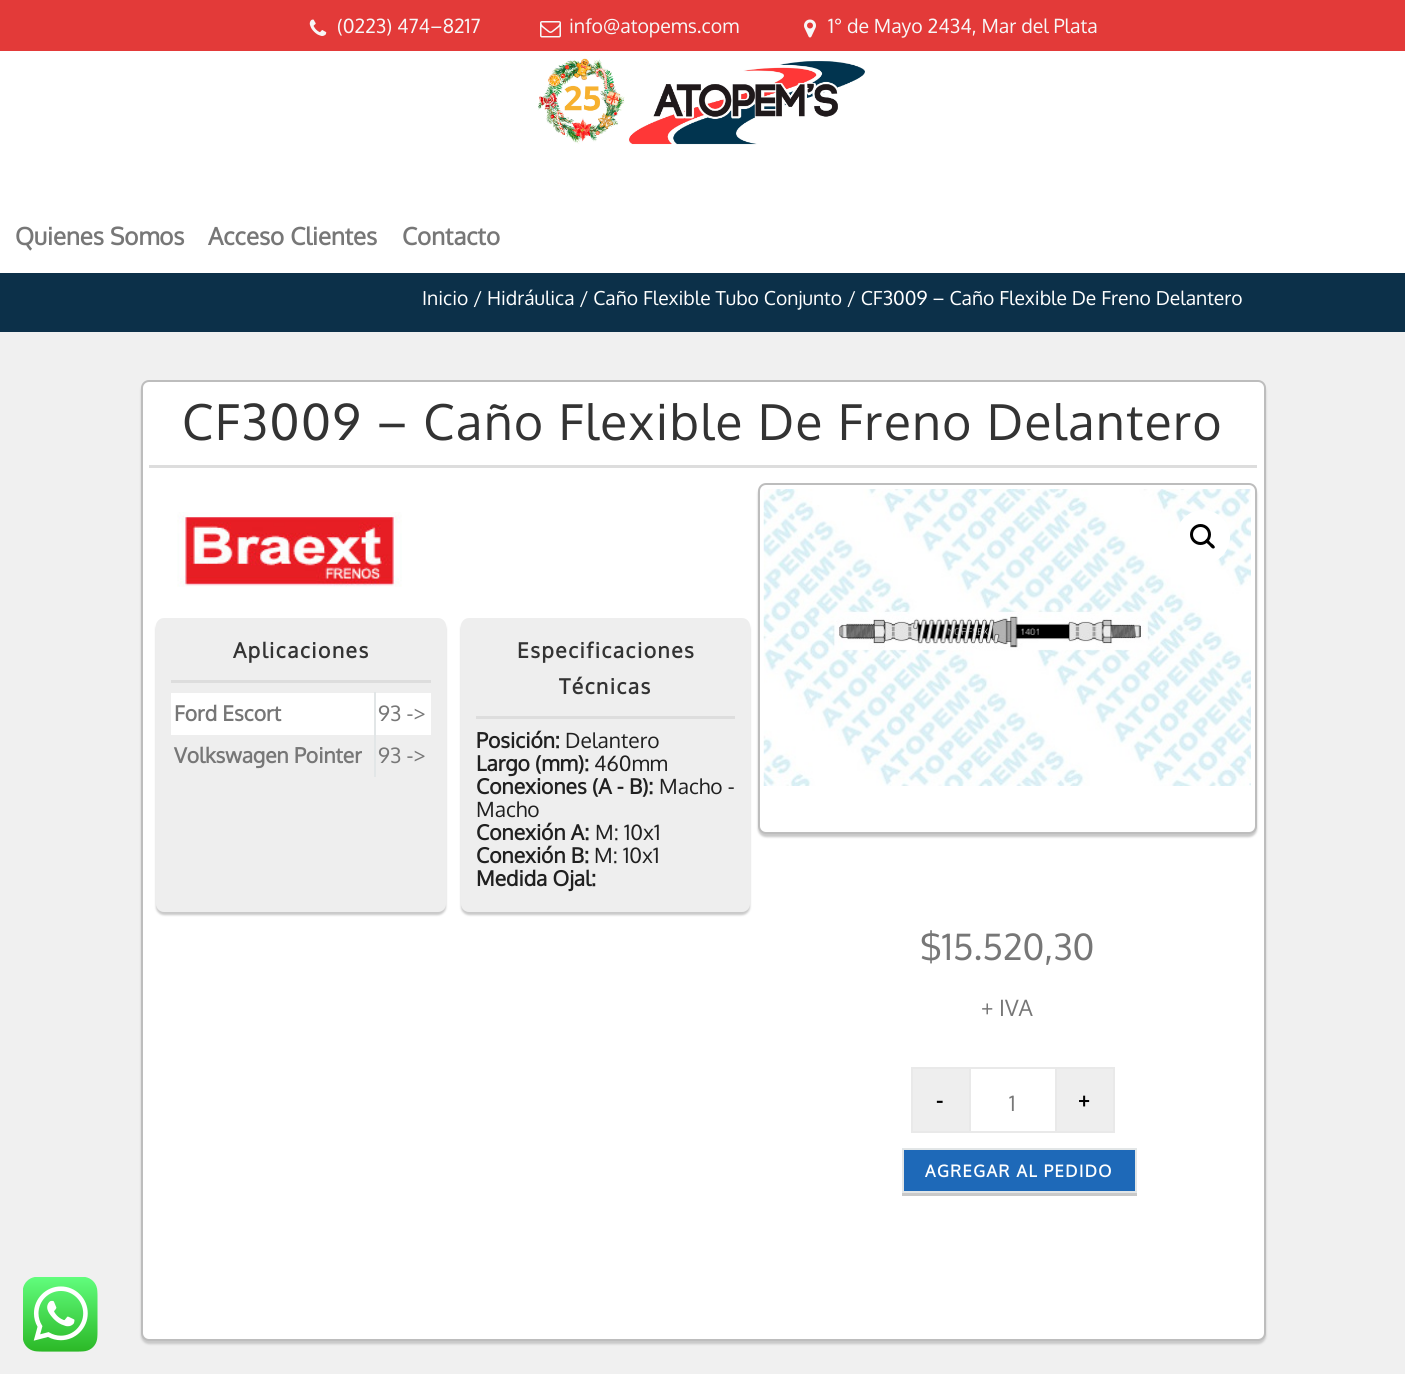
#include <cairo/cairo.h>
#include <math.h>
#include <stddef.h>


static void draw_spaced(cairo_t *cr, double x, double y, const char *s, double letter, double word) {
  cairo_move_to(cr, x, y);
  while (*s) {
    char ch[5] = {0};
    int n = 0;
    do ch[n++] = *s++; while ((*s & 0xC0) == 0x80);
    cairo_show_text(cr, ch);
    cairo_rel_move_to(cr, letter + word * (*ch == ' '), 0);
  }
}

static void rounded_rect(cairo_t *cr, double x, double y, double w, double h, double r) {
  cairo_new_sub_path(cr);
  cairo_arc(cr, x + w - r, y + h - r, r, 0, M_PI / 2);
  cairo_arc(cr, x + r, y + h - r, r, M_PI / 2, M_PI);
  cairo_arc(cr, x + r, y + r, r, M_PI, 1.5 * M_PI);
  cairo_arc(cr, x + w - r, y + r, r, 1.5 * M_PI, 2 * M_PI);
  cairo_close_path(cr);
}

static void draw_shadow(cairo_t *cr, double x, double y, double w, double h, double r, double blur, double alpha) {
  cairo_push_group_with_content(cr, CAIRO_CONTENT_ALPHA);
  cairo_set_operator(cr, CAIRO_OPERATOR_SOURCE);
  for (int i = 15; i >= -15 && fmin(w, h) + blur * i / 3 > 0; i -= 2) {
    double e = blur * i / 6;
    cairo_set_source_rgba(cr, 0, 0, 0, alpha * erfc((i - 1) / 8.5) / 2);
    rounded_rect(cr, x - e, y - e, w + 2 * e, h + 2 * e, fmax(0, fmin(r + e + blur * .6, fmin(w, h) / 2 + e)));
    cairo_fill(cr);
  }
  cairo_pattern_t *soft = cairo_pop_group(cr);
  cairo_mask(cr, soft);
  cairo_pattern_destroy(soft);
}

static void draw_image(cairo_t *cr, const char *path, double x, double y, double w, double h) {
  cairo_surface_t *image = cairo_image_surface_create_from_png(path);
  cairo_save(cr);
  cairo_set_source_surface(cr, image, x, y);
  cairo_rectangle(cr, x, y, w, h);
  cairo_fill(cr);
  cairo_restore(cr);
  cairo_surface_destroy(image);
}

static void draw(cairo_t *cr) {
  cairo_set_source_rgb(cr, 240 / 255.0, 240 / 255.0, 240 / 255.0);
  cairo_paint(cr);
  cairo_set_source_rgb(cr, 227 / 255.0, 58 / 255.0, 57 / 255.0);
  cairo_rectangle(cr, 0, 0, 1405, 51);
  cairo_fill(cr);
  draw_image(cr, "images/1.png", 309, 19, 18, 17);
  draw_image(cr, "images/2.png", 540, 21, 21, 17);
  draw_image(cr, "images/3.png", 804, 19, 12, 19);
  cairo_set_source_rgb(cr, 1, 1, 1);
  cairo_rectangle(cr, 0, 51, 1405, 222);
  cairo_fill(cr);
  draw_image(cr, "images/4.png", 538, 58, 327, 87);
  cairo_set_source_rgb(cr, 12 / 255.0, 48 / 255.0, 73 / 255.0);
  cairo_rectangle(cr, 0, 273, 1405, 59);
  cairo_fill(cr);
  cairo_set_source_rgb(cr, 201 / 255.0, 201 / 255.0, 201 / 255.0);
  draw_shadow(cr, 141, 383, 1125, 961, 8, 1, 1);
  cairo_set_source_rgb(cr, 1, 1, 1);
  rounded_rect(cr, 142, 381, 1123, 959, 7);
  cairo_fill_preserve(cr);
  cairo_set_source_rgb(cr, 189 / 255.0, 189 / 255.0, 189 / 255.0);
  cairo_stroke(cr);
  cairo_set_source_rgb(cr, 221 / 255.0, 221 / 255.0, 221 / 255.0);
  cairo_rectangle(cr, 149, 465, 1108, 3);
  cairo_fill(cr);
  draw_image(cr, "images/5.png", 177, 512, 225, 75);
  cairo_set_source_rgb(cr, 201 / 255.0, 201 / 255.0, 201 / 255.0);
  draw_shadow(cr, 156, 621, 290, 294, 8, 1, 1);
  cairo_set_source_rgb(cr, 238 / 255.0, 238 / 255.0, 238 / 255.0);
  rounded_rect(cr, 156, 618, 290, 294, 8);
  cairo_fill(cr);
  cairo_set_source_rgb(cr, 221 / 255.0, 221 / 255.0, 221 / 255.0);
  cairo_rectangle(cr, 171, 680, 260, 3);
  cairo_fill(cr);
  cairo_set_source_rgb(cr, 1, 1, 1);
  cairo_rectangle(cr, 171, 693, 260, 42);
  cairo_fill(cr);
  cairo_set_source_rgb(cr, 226 / 255.0, 230 / 255.0, 231 / 255.0);
  cairo_rectangle(cr, 374, 692, 2, 85);
  cairo_fill(cr);
  cairo_set_source_rgb(cr, 201 / 255.0, 201 / 255.0, 201 / 255.0);
  draw_shadow(cr, 461, 621, 289, 294, 8, 1, 1);
  cairo_set_source_rgb(cr, 238 / 255.0, 238 / 255.0, 238 / 255.0);
  rounded_rect(cr, 461, 618, 289, 294, 8);
  cairo_fill(cr);
  cairo_set_source_rgb(cr, 221 / 255.0, 221 / 255.0, 221 / 255.0);
  cairo_rectangle(cr, 476, 716, 259, 3);
  cairo_fill(cr);
  cairo_set_source_rgb(cr, 201 / 255.0, 201 / 255.0, 201 / 255.0);
  draw_shadow(cr, 758, 486, 499, 351, 8, 1, 1);
  cairo_set_source_rgb(cr, 1, 1, 1);
  rounded_rect(cr, 759, 484, 497, 349, 7);
  cairo_fill_preserve(cr);
  cairo_set_source_rgb(cr, 189 / 255.0, 189 / 255.0, 189 / 255.0);
  cairo_stroke(cr);
  draw_image(cr, "images/6.png", 763, 489, 488, 297);
  cairo_set_source_rgb(cr, 1, 1, 1);
  cairo_arc(cr, 1203, 537, 27, 0, 2 * M_PI);
  cairo_fill(cr);
  cairo_arc(cr, 1200.5, 534.5, 9, 0, 2 * M_PI);
  cairo_set_source_rgb(cr, 0, 0, 0);
  cairo_set_line_width(cr, 3);
  cairo_stroke(cr);
  cairo_new_path(cr);
  cairo_move_to(cr, 1206, 539.5);
  cairo_curve_to(cr, 1207.5, 538, 1210, 542, 1211, 543);
  cairo_curve_to(cr, 1212, 543.5, 1216, 546.5, 1214.5, 548);
  cairo_curve_to(cr, 1212.5, 550, 1210, 546, 1209, 545);
  cairo_curve_to(cr, 1208, 544, 1204, 541.5, 1206, 539.5);
  cairo_close_path(cr);
  cairo_fill(cr);
  cairo_set_source_rgb(cr, 238 / 255.0, 238 / 255.0, 238 / 255.0);
  cairo_rectangle(cr, 912, 1068, 58, 64);
  cairo_fill_preserve(cr);
  cairo_set_source_rgb(cr, 233 / 255.0, 233 / 255.0, 233 / 255.0);
  cairo_set_line_width(cr, 2);
  cairo_stroke(cr);
  cairo_rectangle(cr, 971, 1067, 84, 2);
  cairo_fill(cr);
  cairo_rectangle(cr, 971, 1131, 84, 2);
  cairo_fill(cr);
  cairo_set_source_rgb(cr, 238 / 255.0, 238 / 255.0, 238 / 255.0);
  cairo_rectangle(cr, 1056, 1068, 58, 64);
  cairo_fill_preserve(cr);
  cairo_set_source_rgb(cr, 233 / 255.0, 233 / 255.0, 233 / 255.0);
  cairo_stroke(cr);
  cairo_set_source_rgb(cr, 201 / 255.0, 201 / 255.0, 201 / 255.0);
  cairo_rectangle(cr, 902, 1193, 235, 3);
  cairo_fill(cr);
  cairo_set_source_rgb(cr, 30 / 255.0, 105 / 255.0, 184 / 255.0);
  cairo_rectangle(cr, 903, 1149, 233, 43);
  cairo_fill_preserve(cr);
  cairo_set_source_rgb(cr, 226 / 255.0, 230 / 255.0, 231 / 255.0);
  cairo_stroke(cr);
  draw_image(cr, "images/7.png", 23, 1277, 75, 75);
  cairo_select_font_face(cr, "Oxygen", CAIRO_FONT_SLANT_NORMAL, CAIRO_FONT_WEIGHT_NORMAL);
  cairo_set_font_size(cr, 19.5);
  cairo_set_source_rgb(cr, 247 / 255.0, 247 / 255.0, 247 / 255.0);
  cairo_move_to(cr, 337, 33);
  cairo_show_text(cr, "(0223) 474–8217");
  cairo_move_to(cr, 569, 33);
  cairo_show_text(cr, "info@atopems.com");
  cairo_move_to(cr, 828, 33);
  cairo_show_text(cr, "1° de Mayo 2434, Mar del Plata");
  cairo_select_font_face(cr, "Oxygen", CAIRO_FONT_SLANT_NORMAL, CAIRO_FONT_WEIGHT_BOLD);
  cairo_set_font_size(cr, 24);
  cairo_set_source_rgb(cr, 119 / 255.0, 119 / 255.0, 119 / 255.0);
  cairo_move_to(cr, 15, 245);
  cairo_show_text(cr, "Quienes Somos");
  cairo_move_to(cr, 208, 245);
  cairo_show_text(cr, "Acceso Clientes");
  cairo_move_to(cr, 402, 245);
  cairo_show_text(cr, "Contacto");
  cairo_select_font_face(cr, "Oxygen", CAIRO_FONT_SLANT_NORMAL, CAIRO_FONT_WEIGHT_NORMAL);
  cairo_set_font_size(cr, 19.3);
  cairo_set_source_rgb(cr, 1, 1, 1);
  cairo_move_to(cr, 422, 305);
  cairo_show_text(cr, "Inicio / Hidráulica / Caño Flexible Tubo Conjunto / CF3009 – Caño Flexible De Freno Delantero");
  cairo_set_font_size(cr, 49.5);
  cairo_set_source_rgb(cr, 51 / 255.0, 51 / 255.0, 51 / 255.0);
  draw_spaced(cr, 182, 440, "CF3009 – Caño Flexible De Freno Delantero", 1.5, 0);
  cairo_select_font_face(cr, "Oxygen", CAIRO_FONT_SLANT_NORMAL, CAIRO_FONT_WEIGHT_BOLD);
  cairo_set_font_size(cr, 21);
  draw_spaced(cr, 233, 658, "Aplicaciones", 1.5, 0);
  cairo_set_source_rgb(cr, 119 / 255.0, 119 / 255.0, 119 / 255.0);
  cairo_move_to(cr, 174, 721);
  cairo_show_text(cr, "Ford Escort");
  cairo_select_font_face(cr, "Oxygen", CAIRO_FONT_SLANT_NORMAL, CAIRO_FONT_WEIGHT_NORMAL);
  cairo_move_to(cr, 378, 721);
  cairo_show_text(cr, "93 ->");
  cairo_select_font_face(cr, "Oxygen", CAIRO_FONT_SLANT_NORMAL, CAIRO_FONT_WEIGHT_BOLD);
  cairo_move_to(cr, 174, 763);
  cairo_show_text(cr, "Volkswagen Pointer");
  cairo_select_font_face(cr, "Oxygen", CAIRO_FONT_SLANT_NORMAL, CAIRO_FONT_WEIGHT_NORMAL);
  cairo_move_to(cr, 378, 763);
  cairo_show_text(cr, "93 ->");
  cairo_select_font_face(cr, "Oxygen", CAIRO_FONT_SLANT_NORMAL, CAIRO_FONT_WEIGHT_BOLD);
  cairo_set_source_rgb(cr, 51 / 255.0, 51 / 255.0, 51 / 255.0);
  draw_spaced(cr, 517, 658, "Especificaciones", 1.5, 0);
  draw_spaced(cr, 559, 694, "Técnicas", 1.5, 0);
  cairo_set_source_rgb(cr, 32 / 255.0, 32 / 255.0, 32 / 255.0);
  cairo_move_to(cr, 476, 748);
  cairo_show_text(cr, "Posición:");
  cairo_select_font_face(cr, "Oxygen", CAIRO_FONT_SLANT_NORMAL, CAIRO_FONT_WEIGHT_NORMAL);
  cairo_move_to(cr, 565, 748);
  cairo_show_text(cr, "Delantero");
  cairo_select_font_face(cr, "Oxygen", CAIRO_FONT_SLANT_NORMAL, CAIRO_FONT_WEIGHT_BOLD);
  cairo_move_to(cr, 476, 771);
  cairo_show_text(cr, "Largo (mm):");
  cairo_select_font_face(cr, "Oxygen", CAIRO_FONT_SLANT_NORMAL, CAIRO_FONT_WEIGHT_NORMAL);
  cairo_move_to(cr, 594, 771);
  cairo_show_text(cr, "460mm");
  cairo_select_font_face(cr, "Oxygen", CAIRO_FONT_SLANT_NORMAL, CAIRO_FONT_WEIGHT_BOLD);
  cairo_move_to(cr, 476, 794);
  cairo_show_text(cr, "Conexiones (A - B):");
  cairo_select_font_face(cr, "Oxygen", CAIRO_FONT_SLANT_NORMAL, CAIRO_FONT_WEIGHT_NORMAL);
  cairo_move_to(cr, 659, 794);
  cairo_show_text(cr, "Macho -");
  cairo_move_to(cr, 476, 817);
  cairo_show_text(cr, "Macho");
  cairo_select_font_face(cr, "Oxygen", CAIRO_FONT_SLANT_NORMAL, CAIRO_FONT_WEIGHT_BOLD);
  cairo_move_to(cr, 476, 840);
  cairo_show_text(cr, "Conexión A:");
  cairo_select_font_face(cr, "Oxygen", CAIRO_FONT_SLANT_NORMAL, CAIRO_FONT_WEIGHT_NORMAL);
  cairo_move_to(cr, 595, 840);
  cairo_show_text(cr, "M: 10x1");
  cairo_select_font_face(cr, "Oxygen", CAIRO_FONT_SLANT_NORMAL, CAIRO_FONT_WEIGHT_BOLD);
  cairo_move_to(cr, 476, 863);
  cairo_show_text(cr, "Conexión B:");
  cairo_select_font_face(cr, "Oxygen", CAIRO_FONT_SLANT_NORMAL, CAIRO_FONT_WEIGHT_NORMAL);
  cairo_move_to(cr, 594, 863);
  cairo_show_text(cr, "M: 10x1");
  cairo_select_font_face(cr, "Oxygen", CAIRO_FONT_SLANT_NORMAL, CAIRO_FONT_WEIGHT_BOLD);
  cairo_move_to(cr, 476, 886);
  cairo_show_text(cr, "Medida Ojal:");
  cairo_select_font_face(cr, "Oxygen", CAIRO_FONT_SLANT_NORMAL, CAIRO_FONT_WEIGHT_NORMAL);
  cairo_set_font_size(cr, 36);
  cairo_set_source_rgb(cr, 119 / 255.0, 119 / 255.0, 119 / 255.0);
  cairo_move_to(cr, 920, 960);
  cairo_show_text(cr, "$15.520,30");
  cairo_set_font_size(cr, 22.5);
  cairo_move_to(cr, 981, 1016);
  cairo_show_text(cr, "+ IVA");
  cairo_select_font_face(cr, "Oxygen", CAIRO_FONT_SLANT_NORMAL, CAIRO_FONT_WEIGHT_BOLD);
  cairo_set_font_size(cr, 21);
  cairo_set_source_rgb(cr, 0, 0, 0);
  cairo_move_to(cr, 936, 1108);
  cairo_show_text(cr, "-");
  cairo_select_font_face(cr, "Oxygen", CAIRO_FONT_SLANT_NORMAL, CAIRO_FONT_WEIGHT_NORMAL);
  cairo_set_source_rgb(cr, 119 / 255.0, 119 / 255.0, 119 / 255.0);
  cairo_move_to(cr, 1009, 1111);
  cairo_show_text(cr, "1");
  cairo_select_font_face(cr, "Oxygen", CAIRO_FONT_SLANT_NORMAL, CAIRO_FONT_WEIGHT_BOLD);
  cairo_set_source_rgb(cr, 0, 0, 0);
  cairo_move_to(cr, 1078, 1108);
  cairo_show_text(cr, "+");
  cairo_set_font_size(cr, 16.5);
  cairo_set_source_rgb(cr, 1, 1, 1);
  draw_spaced(cr, 925, 1177, "AGREGAR AL PEDIDO", 1.5, 0);
}

int main(void) {
  cairo_surface_t *surface = cairo_image_surface_create(CAIRO_FORMAT_RGB24, 1405, 1374);
  cairo_t *cr = cairo_create(surface);
  cairo_font_options_t *options = cairo_font_options_create();
  cairo_font_options_set_hint_metrics(options, CAIRO_HINT_METRICS_OFF);
  cairo_font_options_set_hint_style(options, CAIRO_HINT_STYLE_NONE);
  cairo_set_font_options(cr, options);
  cairo_set_miter_limit(cr, 4);
  draw(cr);
  cairo_surface_write_to_png(surface, "out.png");
  cairo_font_options_destroy(options);
  cairo_destroy(cr);
  cairo_surface_destroy(surface);
  return 0;
}
